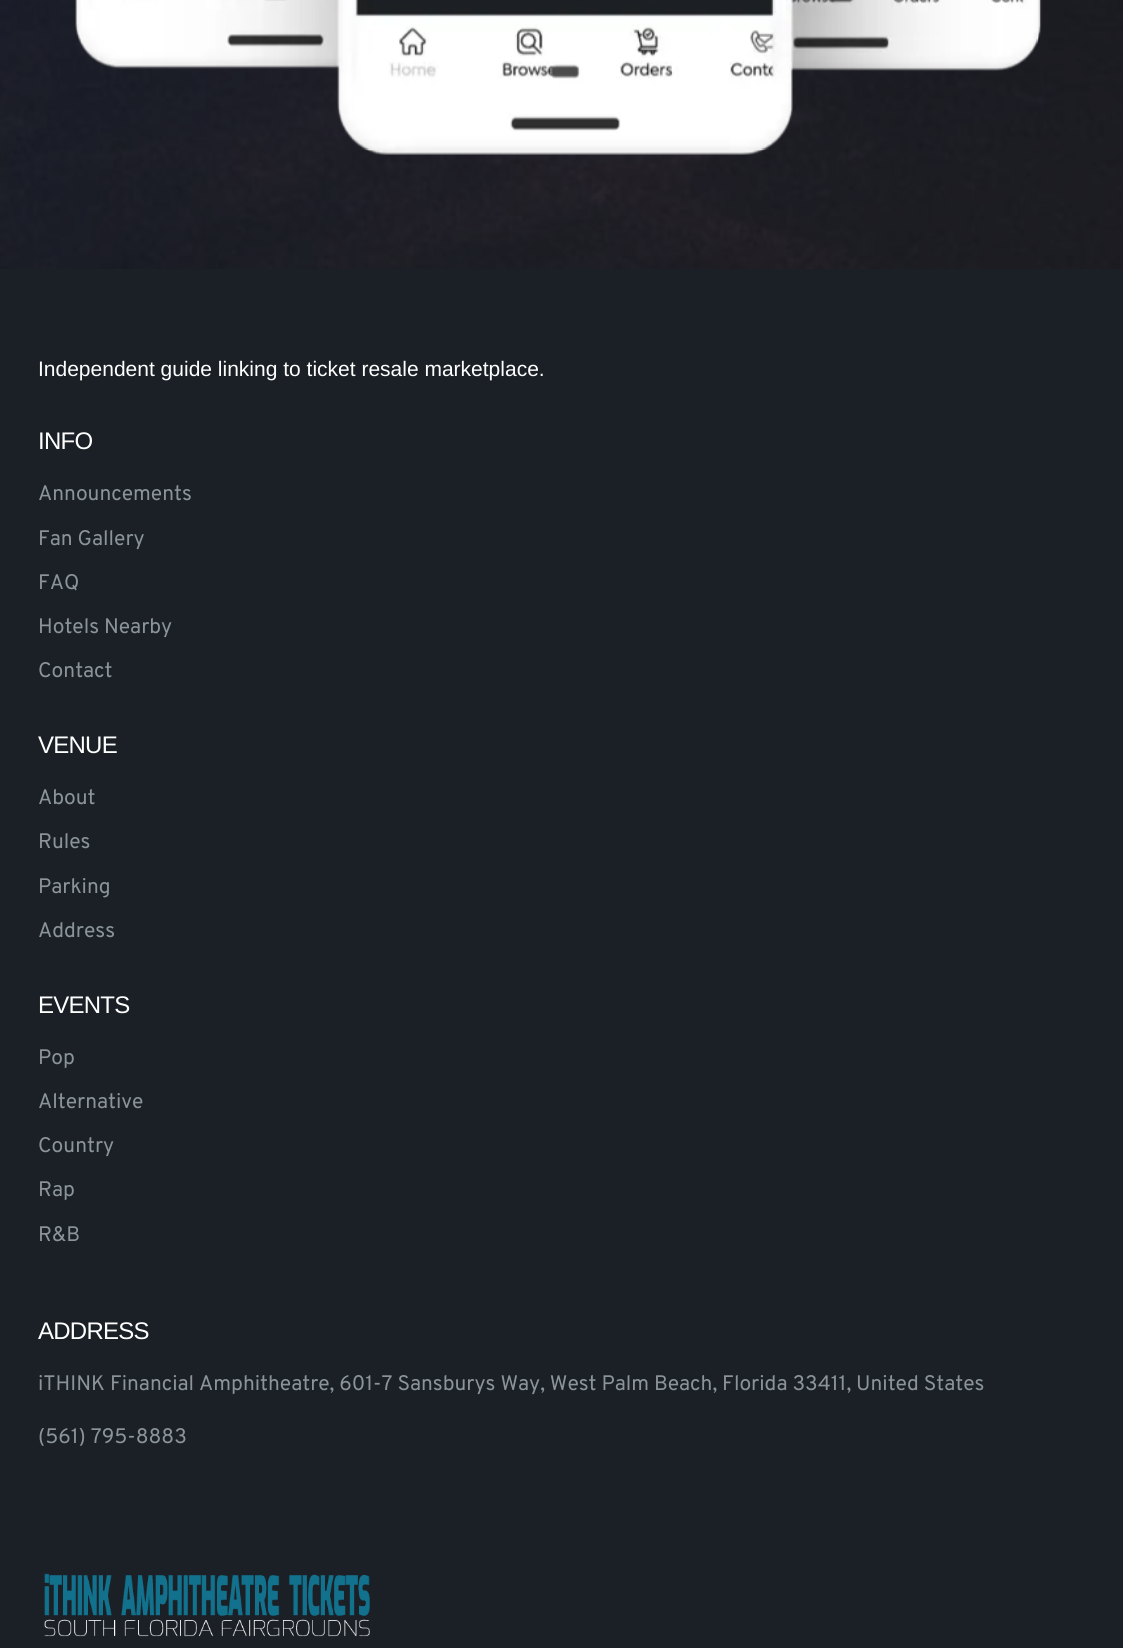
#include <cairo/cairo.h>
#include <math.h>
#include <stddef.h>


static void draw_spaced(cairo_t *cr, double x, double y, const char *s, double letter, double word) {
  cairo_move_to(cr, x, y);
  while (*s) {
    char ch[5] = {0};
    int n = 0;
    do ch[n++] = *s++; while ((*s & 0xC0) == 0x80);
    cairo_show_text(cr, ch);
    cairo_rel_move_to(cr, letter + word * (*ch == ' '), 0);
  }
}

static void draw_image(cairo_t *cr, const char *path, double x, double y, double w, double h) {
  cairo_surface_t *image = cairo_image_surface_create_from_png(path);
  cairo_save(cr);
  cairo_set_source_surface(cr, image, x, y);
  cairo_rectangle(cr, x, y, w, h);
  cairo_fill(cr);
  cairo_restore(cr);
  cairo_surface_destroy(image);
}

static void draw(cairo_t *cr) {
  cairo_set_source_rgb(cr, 26 / 255.0, 32 / 255.0, 38 / 255.0);
  cairo_paint(cr);
  draw_image(cr, "images/1.png", 0, 0, 1123, 269);
  draw_image(cr, "images/2.png", 75, 0, 967, 155);
  draw_image(cr, "images/3.png", 44, 1573, 326, 64);
  cairo_select_font_face(cr, "Liberation Sans", CAIRO_FONT_SLANT_NORMAL, CAIRO_FONT_WEIGHT_NORMAL);
  cairo_set_font_size(cr, 21);
  cairo_set_source_rgb(cr, 1, 1, 1);
  cairo_move_to(cr, 38, 376);
  cairo_show_text(cr, "Independent guide linking to ticket resale marketplace.");
  cairo_set_font_size(cr, 24);
  draw_spaced(cr, 38, 449, "INFO", -0.75, 0);
  cairo_select_font_face(cr, "Overpass", CAIRO_FONT_SLANT_NORMAL, CAIRO_FONT_WEIGHT_NORMAL);
  cairo_set_font_size(cr, 21);
  cairo_set_source_rgb(cr, 140 / 255.0, 148 / 255.0, 155 / 255.0);
  cairo_move_to(cr, 38, 500);
  cairo_show_text(cr, "Announcements");
  cairo_move_to(cr, 38, 545);
  cairo_show_text(cr, "Fan Gallery");
  cairo_move_to(cr, 38, 589);
  cairo_show_text(cr, "FAQ");
  cairo_move_to(cr, 38, 633);
  cairo_show_text(cr, "Hotels Nearby");
  cairo_move_to(cr, 38, 677);
  cairo_show_text(cr, "Contact");
  cairo_select_font_face(cr, "Liberation Sans", CAIRO_FONT_SLANT_NORMAL, CAIRO_FONT_WEIGHT_NORMAL);
  cairo_set_font_size(cr, 24);
  cairo_set_source_rgb(cr, 1, 1, 1);
  draw_spaced(cr, 38, 753, "VENUE", -0.75, 0);
  cairo_select_font_face(cr, "Overpass", CAIRO_FONT_SLANT_NORMAL, CAIRO_FONT_WEIGHT_NORMAL);
  cairo_set_font_size(cr, 21);
  cairo_set_source_rgb(cr, 140 / 255.0, 148 / 255.0, 155 / 255.0);
  cairo_move_to(cr, 38, 804);
  cairo_show_text(cr, "About");
  cairo_move_to(cr, 38, 848);
  cairo_show_text(cr, "Rules");
  cairo_move_to(cr, 38, 893);
  cairo_show_text(cr, "Parking");
  cairo_move_to(cr, 38, 937);
  cairo_show_text(cr, "Address");
  cairo_select_font_face(cr, "Liberation Sans", CAIRO_FONT_SLANT_NORMAL, CAIRO_FONT_WEIGHT_NORMAL);
  cairo_set_font_size(cr, 24);
  cairo_set_source_rgb(cr, 1, 1, 1);
  draw_spaced(cr, 38, 1013, "EVENTS", -0.75, 0);
  cairo_select_font_face(cr, "Overpass", CAIRO_FONT_SLANT_NORMAL, CAIRO_FONT_WEIGHT_NORMAL);
  cairo_set_font_size(cr, 21);
  cairo_set_source_rgb(cr, 140 / 255.0, 148 / 255.0, 155 / 255.0);
  cairo_move_to(cr, 38, 1064);
  cairo_show_text(cr, "Pop");
  cairo_move_to(cr, 38, 1108);
  cairo_show_text(cr, "Alternative");
  cairo_move_to(cr, 38, 1152);
  cairo_show_text(cr, "Country");
  cairo_move_to(cr, 38, 1196);
  cairo_show_text(cr, "Rap");
  cairo_move_to(cr, 38, 1241);
  cairo_show_text(cr, "R&B");
  cairo_select_font_face(cr, "Liberation Sans", CAIRO_FONT_SLANT_NORMAL, CAIRO_FONT_WEIGHT_NORMAL);
  cairo_set_font_size(cr, 24);
  cairo_set_source_rgb(cr, 1, 1, 1);
  draw_spaced(cr, 38, 1339, "ADDRESS", -0.75, 0);
  cairo_select_font_face(cr, "Overpass", CAIRO_FONT_SLANT_NORMAL, CAIRO_FONT_WEIGHT_NORMAL);
  cairo_set_font_size(cr, 21);
  cairo_set_source_rgb(cr, 140 / 255.0, 148 / 255.0, 155 / 255.0);
  cairo_move_to(cr, 38, 1390);
  cairo_show_text(cr, "iTHINK Financial Amphitheatre, 601-7 Sansburys Way, West Palm Beach, Florida 33411, United States");
  cairo_move_to(cr, 38, 1443);
  cairo_show_text(cr, "(561) 795-8883");
}

int main(void) {
  cairo_surface_t *surface = cairo_image_surface_create(CAIRO_FORMAT_RGB24, 1123, 1648);
  cairo_t *cr = cairo_create(surface);
  cairo_font_options_t *options = cairo_font_options_create();
  cairo_font_options_set_hint_metrics(options, CAIRO_HINT_METRICS_OFF);
  cairo_font_options_set_hint_style(options, CAIRO_HINT_STYLE_NONE);
  cairo_set_font_options(cr, options);
  cairo_set_miter_limit(cr, 4);
  draw(cr);
  cairo_surface_write_to_png(surface, "out.png");
  cairo_font_options_destroy(options);
  cairo_destroy(cr);
  cairo_surface_destroy(surface);
  return 0;
}
